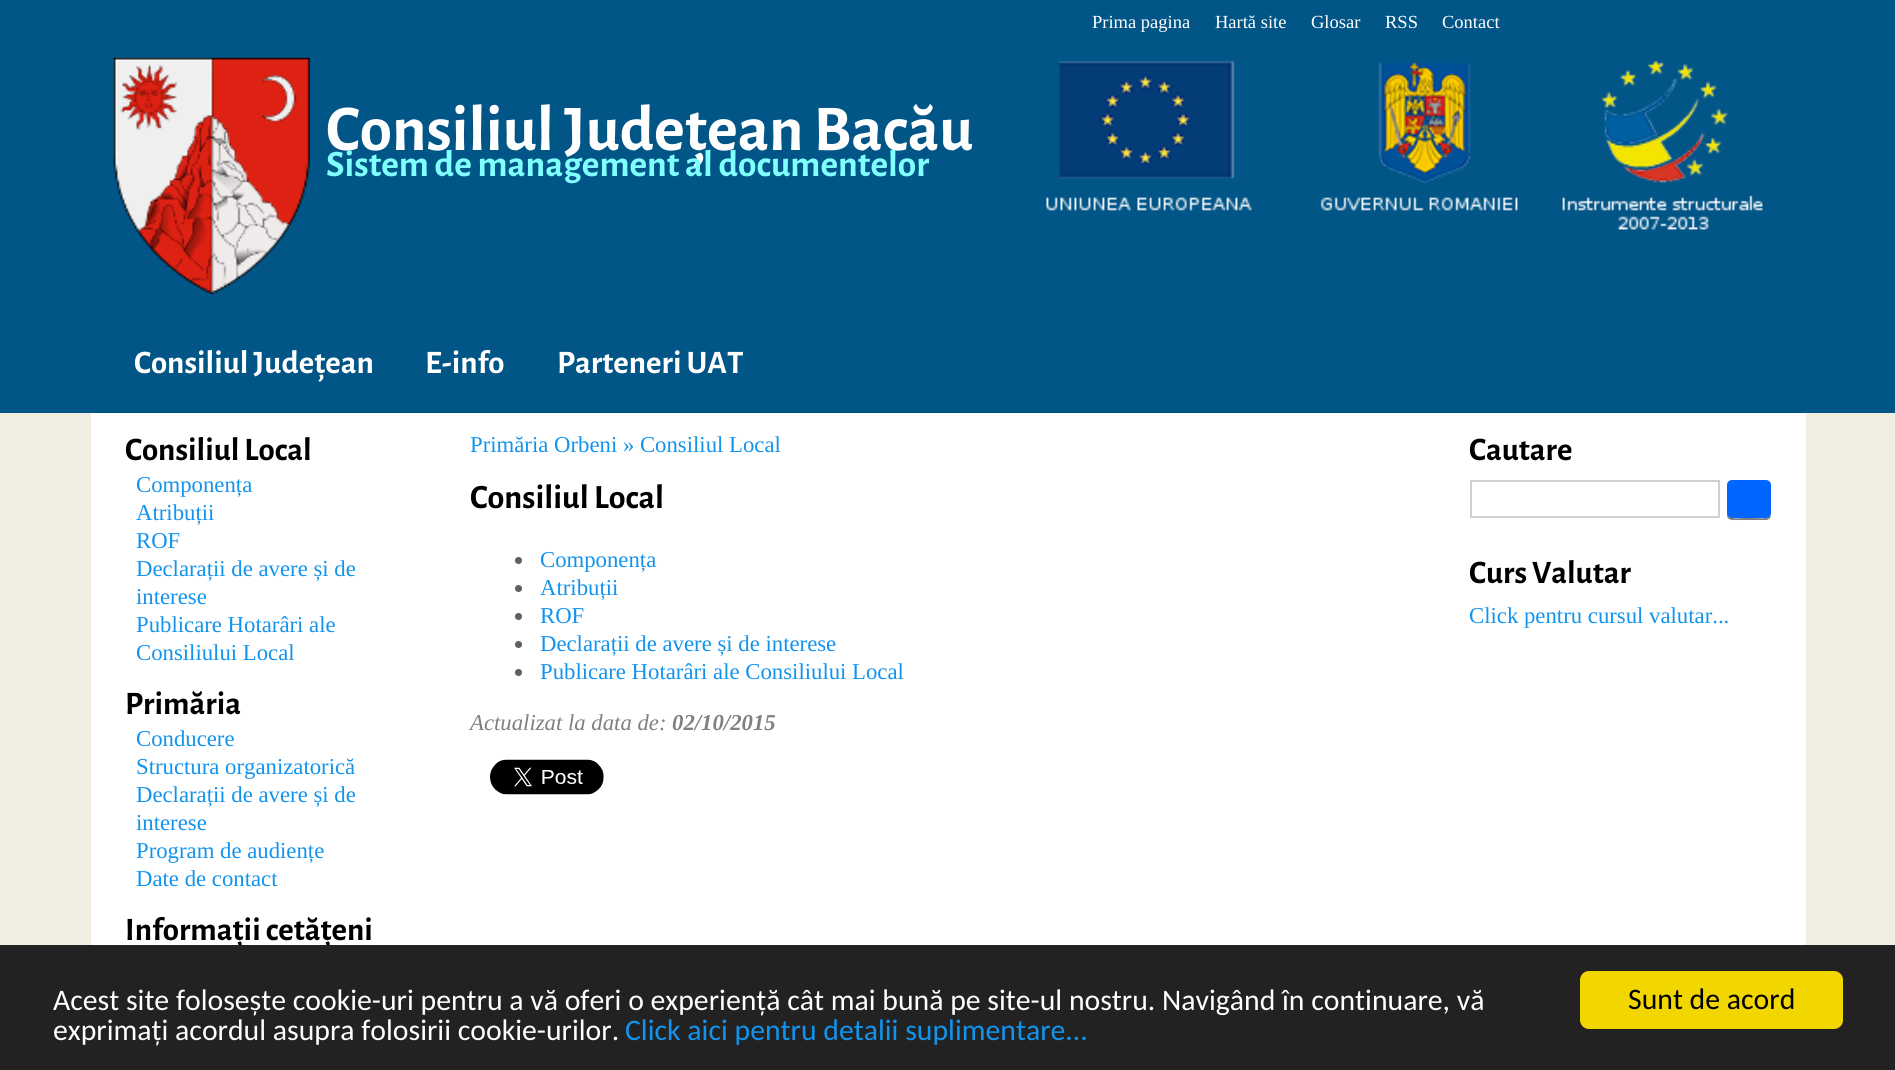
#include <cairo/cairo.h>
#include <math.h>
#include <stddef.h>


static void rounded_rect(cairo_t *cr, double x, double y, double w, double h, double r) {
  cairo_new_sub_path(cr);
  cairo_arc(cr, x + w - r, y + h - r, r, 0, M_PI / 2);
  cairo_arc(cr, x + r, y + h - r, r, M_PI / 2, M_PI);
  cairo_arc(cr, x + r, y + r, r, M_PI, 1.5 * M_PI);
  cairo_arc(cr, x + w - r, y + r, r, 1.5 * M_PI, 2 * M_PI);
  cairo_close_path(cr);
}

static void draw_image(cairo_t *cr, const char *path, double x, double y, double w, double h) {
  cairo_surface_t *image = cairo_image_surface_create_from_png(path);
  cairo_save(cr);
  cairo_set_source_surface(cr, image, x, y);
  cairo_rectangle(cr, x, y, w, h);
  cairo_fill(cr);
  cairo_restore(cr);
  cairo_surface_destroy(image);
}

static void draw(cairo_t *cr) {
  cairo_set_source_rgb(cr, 240 / 255.0, 239 / 255.0, 226 / 255.0);
  cairo_paint(cr);
  cairo_set_source_rgb(cr, 2 / 255.0, 85 / 255.0, 135 / 255.0);
  cairo_rectangle(cr, 0, 0, 1895, 413);
  cairo_fill(cr);
  draw_image(cr, "images/1.png", 113, 57, 197, 237);
  draw_image(cr, "images/2.png", 1046, 60, 717, 170);
  cairo_set_source_rgb(cr, 1, 1, 1);
  cairo_rectangle(cr, 91, 413, 1715, 532);
  cairo_fill(cr);
  cairo_set_source_rgb(cr, 96 / 255.0, 96 / 255.0, 96 / 255.0);
  cairo_arc(cr, 518.5, 560.5, 3.5, 0, 2 * M_PI);
  cairo_fill(cr);
  cairo_arc(cr, 518.5, 588.5, 3.5, 0, 2 * M_PI);
  cairo_fill(cr);
  cairo_arc(cr, 518.5, 616.5, 3.5, 0, 2 * M_PI);
  cairo_fill(cr);
  cairo_arc(cr, 518.5, 644.5, 3.5, 0, 2 * M_PI);
  cairo_fill(cr);
  cairo_arc(cr, 518.5, 672.5, 3.5, 0, 2 * M_PI);
  cairo_fill(cr);
  draw_image(cr, "images/3.png", 490, 759, 114, 36);
  cairo_rectangle(cr, 1471, 481, 248, 36);
  cairo_set_source_rgb(cr, 208 / 255.0, 208 / 255.0, 208 / 255.0);
  cairo_stroke(cr);
  cairo_set_source_rgb(cr, 128 / 255.0, 128 / 255.0, 128 / 255.0);
  cairo_new_path(cr);
  cairo_move_to(cr, 1727, 484);
  cairo_line_to(cr, 1727, 516);
  cairo_curve_to(cr, 1728, 521, 1734, 520, 1738, 520);
  cairo_line_to(cr, 1760, 520);
  cairo_curve_to(cr, 1767, 520, 1771, 521, 1771, 513);
  cairo_curve_to(cr, 1771, 520, 1759, 518, 1755, 518);
  cairo_line_to(cr, 1744, 518);
  cairo_curve_to(cr, 1739, 518, 1729, 520, 1727, 514);
  cairo_close_path(cr);
  cairo_fill(cr);
  cairo_set_source_rgb(cr, 0, 102 / 255.0, 1);
  rounded_rect(cr, 1727, 480, 44, 38, 5);
  cairo_fill(cr);
  cairo_select_font_face(cr, "Liberation Serif", CAIRO_FONT_SLANT_NORMAL, CAIRO_FONT_WEIGHT_NORMAL);
  cairo_set_font_size(cr, 18.5);
  cairo_set_source_rgb(cr, 1, 1, 1);
  cairo_move_to(cr, 1092, 28);
  cairo_show_text(cr, "Prima pagina");
  cairo_move_to(cr, 1215, 28);
  cairo_show_text(cr, "Hartă site");
  cairo_move_to(cr, 1311, 28);
  cairo_show_text(cr, "Glosar");
  cairo_move_to(cr, 1385, 28);
  cairo_show_text(cr, "RSS");
  cairo_move_to(cr, 1442, 28);
  cairo_show_text(cr, "Contact");
  cairo_select_font_face(cr, "Alegreya Sans", CAIRO_FONT_SLANT_NORMAL, CAIRO_FONT_WEIGHT_BOLD);
  cairo_set_font_size(cr, 65.25);
  cairo_move_to(cr, 326, 150);
  cairo_show_text(cr, "Consiliul Județean Bacău");
  cairo_set_font_size(cr, 37.3);
  cairo_set_source_rgb(cr, 128 / 255.0, 1, 1);
  cairo_move_to(cr, 326, 176);
  cairo_show_text(cr, "Sistem de management al documentelor");
  cairo_set_font_size(cr, 32.75);
  cairo_set_source_rgb(cr, 1, 1, 1);
  cairo_move_to(cr, 134, 373);
  cairo_show_text(cr, "Consiliul Județean");
  cairo_move_to(cr, 425, 373);
  cairo_show_text(cr, "E-info");
  cairo_move_to(cr, 557, 373);
  cairo_show_text(cr, "Parteneri UAT");
  cairo_set_source_rgb(cr, 0, 0, 0);
  cairo_move_to(cr, 125, 460);
  cairo_show_text(cr, "Consiliul Local");
  cairo_select_font_face(cr, "Liberation Serif", CAIRO_FONT_SLANT_NORMAL, CAIRO_FONT_WEIGHT_NORMAL);
  cairo_set_font_size(cr, 22.75);
  cairo_set_source_rgb(cr, 18 / 255.0, 147 / 255.0, 238 / 255.0);
  cairo_move_to(cr, 136, 492);
  cairo_show_text(cr, "Componența");
  cairo_move_to(cr, 136, 520);
  cairo_show_text(cr, "Atribuții");
  cairo_move_to(cr, 136, 548);
  cairo_show_text(cr, "ROF");
  cairo_move_to(cr, 136, 576);
  cairo_show_text(cr, "Declarații de avere și de");
  cairo_move_to(cr, 136, 604);
  cairo_show_text(cr, "interese");
  cairo_move_to(cr, 136, 632);
  cairo_show_text(cr, "Publicare Hotarâri ale");
  cairo_move_to(cr, 136, 660);
  cairo_show_text(cr, "Consiliului Local");
  cairo_select_font_face(cr, "Alegreya Sans", CAIRO_FONT_SLANT_NORMAL, CAIRO_FONT_WEIGHT_BOLD);
  cairo_set_font_size(cr, 32.75);
  cairo_set_source_rgb(cr, 0, 0, 0);
  cairo_move_to(cr, 125, 714);
  cairo_show_text(cr, "Primăria");
  cairo_select_font_face(cr, "Liberation Serif", CAIRO_FONT_SLANT_NORMAL, CAIRO_FONT_WEIGHT_NORMAL);
  cairo_set_font_size(cr, 22.75);
  cairo_set_source_rgb(cr, 18 / 255.0, 147 / 255.0, 238 / 255.0);
  cairo_move_to(cr, 136, 746);
  cairo_show_text(cr, "Conducere");
  cairo_move_to(cr, 136, 774);
  cairo_show_text(cr, "Structura organizatorică");
  cairo_move_to(cr, 136, 802);
  cairo_show_text(cr, "Declarații de avere și de");
  cairo_move_to(cr, 136, 830);
  cairo_show_text(cr, "interese");
  cairo_move_to(cr, 136, 858);
  cairo_show_text(cr, "Program de audiențe");
  cairo_move_to(cr, 136, 886);
  cairo_show_text(cr, "Date de contact");
  cairo_select_font_face(cr, "Alegreya Sans", CAIRO_FONT_SLANT_NORMAL, CAIRO_FONT_WEIGHT_BOLD);
  cairo_set_font_size(cr, 32.75);
  cairo_set_source_rgb(cr, 0, 0, 0);
  cairo_move_to(cr, 125, 940);
  cairo_show_text(cr, "Informații cetățeni");
  cairo_select_font_face(cr, "Liberation Serif", CAIRO_FONT_SLANT_NORMAL, CAIRO_FONT_WEIGHT_NORMAL);
  cairo_set_font_size(cr, 22.75);
  cairo_set_source_rgb(cr, 18 / 255.0, 147 / 255.0, 238 / 255.0);
  cairo_move_to(cr, 470, 452);
  cairo_show_text(cr, "Primăria Orbeni » Consiliul Local");
  cairo_select_font_face(cr, "Alegreya Sans", CAIRO_FONT_SLANT_NORMAL, CAIRO_FONT_WEIGHT_BOLD);
  cairo_set_font_size(cr, 34);
  cairo_set_source_rgb(cr, 0, 0, 0);
  cairo_move_to(cr, 470, 508);
  cairo_show_text(cr, "Consiliul Local");
  cairo_select_font_face(cr, "Liberation Serif", CAIRO_FONT_SLANT_NORMAL, CAIRO_FONT_WEIGHT_NORMAL);
  cairo_set_font_size(cr, 22.75);
  cairo_set_source_rgb(cr, 18 / 255.0, 147 / 255.0, 238 / 255.0);
  cairo_move_to(cr, 540, 567);
  cairo_show_text(cr, "Componența");
  cairo_move_to(cr, 540, 595);
  cairo_show_text(cr, "Atribuții");
  cairo_move_to(cr, 540, 623);
  cairo_show_text(cr, "ROF");
  cairo_move_to(cr, 540, 651);
  cairo_show_text(cr, "Declarații de avere și de interese");
  cairo_move_to(cr, 540, 679);
  cairo_show_text(cr, "Publicare Hotarâri ale Consiliului Local");
  cairo_select_font_face(cr, "Liberation Serif", CAIRO_FONT_SLANT_ITALIC, CAIRO_FONT_WEIGHT_NORMAL);
  cairo_set_source_rgb(cr, 128 / 255.0, 128 / 255.0, 128 / 255.0);
  cairo_move_to(cr, 470, 730);
  cairo_show_text(cr, "Actualizat la data de:");
  cairo_select_font_face(cr, "Liberation Serif", CAIRO_FONT_SLANT_ITALIC, CAIRO_FONT_WEIGHT_BOLD);
  cairo_move_to(cr, 672, 730);
  cairo_show_text(cr, "02/10/2015");
  cairo_select_font_face(cr, "Alegreya Sans", CAIRO_FONT_SLANT_NORMAL, CAIRO_FONT_WEIGHT_BOLD);
  cairo_set_font_size(cr, 32.75);
  cairo_set_source_rgb(cr, 0, 0, 0);
  cairo_move_to(cr, 1469, 460);
  cairo_show_text(cr, "Cautare");
  cairo_move_to(cr, 1469, 583);
  cairo_show_text(cr, "Curs Valutar");
  cairo_select_font_face(cr, "Liberation Serif", CAIRO_FONT_SLANT_NORMAL, CAIRO_FONT_WEIGHT_NORMAL);
  cairo_set_font_size(cr, 22.75);
  cairo_set_source_rgb(cr, 18 / 255.0, 147 / 255.0, 238 / 255.0);
  cairo_move_to(cr, 1469, 623);
  cairo_show_text(cr, "Click pentru cursul valutar...");
  cairo_set_source_rgb(cr, 34 / 255.0, 34 / 255.0, 34 / 255.0);
  cairo_rectangle(cr, 0, 945, 1895, 125);
  cairo_fill(cr);
  cairo_select_font_face(cr, "Carlito", CAIRO_FONT_SLANT_NORMAL, CAIRO_FONT_WEIGHT_NORMAL);
  cairo_set_font_size(cr, 29.75);
  cairo_set_source_rgb(cr, 1, 1, 1);
  cairo_move_to(cr, 53, 1010);
  cairo_show_text(cr, "Acest site folosește cookie-uri pentru a vă oferi o experiență cât mai bună pe site-ul nostru. Navigând în continuare, vă");
  cairo_move_to(cr, 53, 1040);
  cairo_show_text(cr, "exprimați acordul asupra folosirii cookie-urilor.");
  cairo_set_source_rgb(cr, 18 / 255.0, 147 / 255.0, 238 / 255.0);
  cairo_move_to(cr, 625, 1040);
  cairo_show_text(cr, "Click aici pentru detalii suplimentare...");
  cairo_set_source_rgb(cr, 241 / 255.0, 214 / 255.0, 0);
  rounded_rect(cr, 1580, 971, 263, 58, 9);
  cairo_fill(cr);
  cairo_set_source_rgb(cr, 0, 0, 0);
  cairo_move_to(cr, 1628, 1009);
  cairo_show_text(cr, "Sunt de acord");
}

int main(void) {
  cairo_surface_t *surface = cairo_image_surface_create(CAIRO_FORMAT_RGB24, 1895, 1070);
  cairo_t *cr = cairo_create(surface);
  cairo_font_options_t *options = cairo_font_options_create();
  cairo_font_options_set_hint_metrics(options, CAIRO_HINT_METRICS_OFF);
  cairo_font_options_set_hint_style(options, CAIRO_HINT_STYLE_NONE);
  cairo_set_font_options(cr, options);
  cairo_set_miter_limit(cr, 4);
  draw(cr);
  cairo_surface_write_to_png(surface, "out.png");
  cairo_font_options_destroy(options);
  cairo_destroy(cr);
  cairo_surface_destroy(surface);
  return 0;
}
